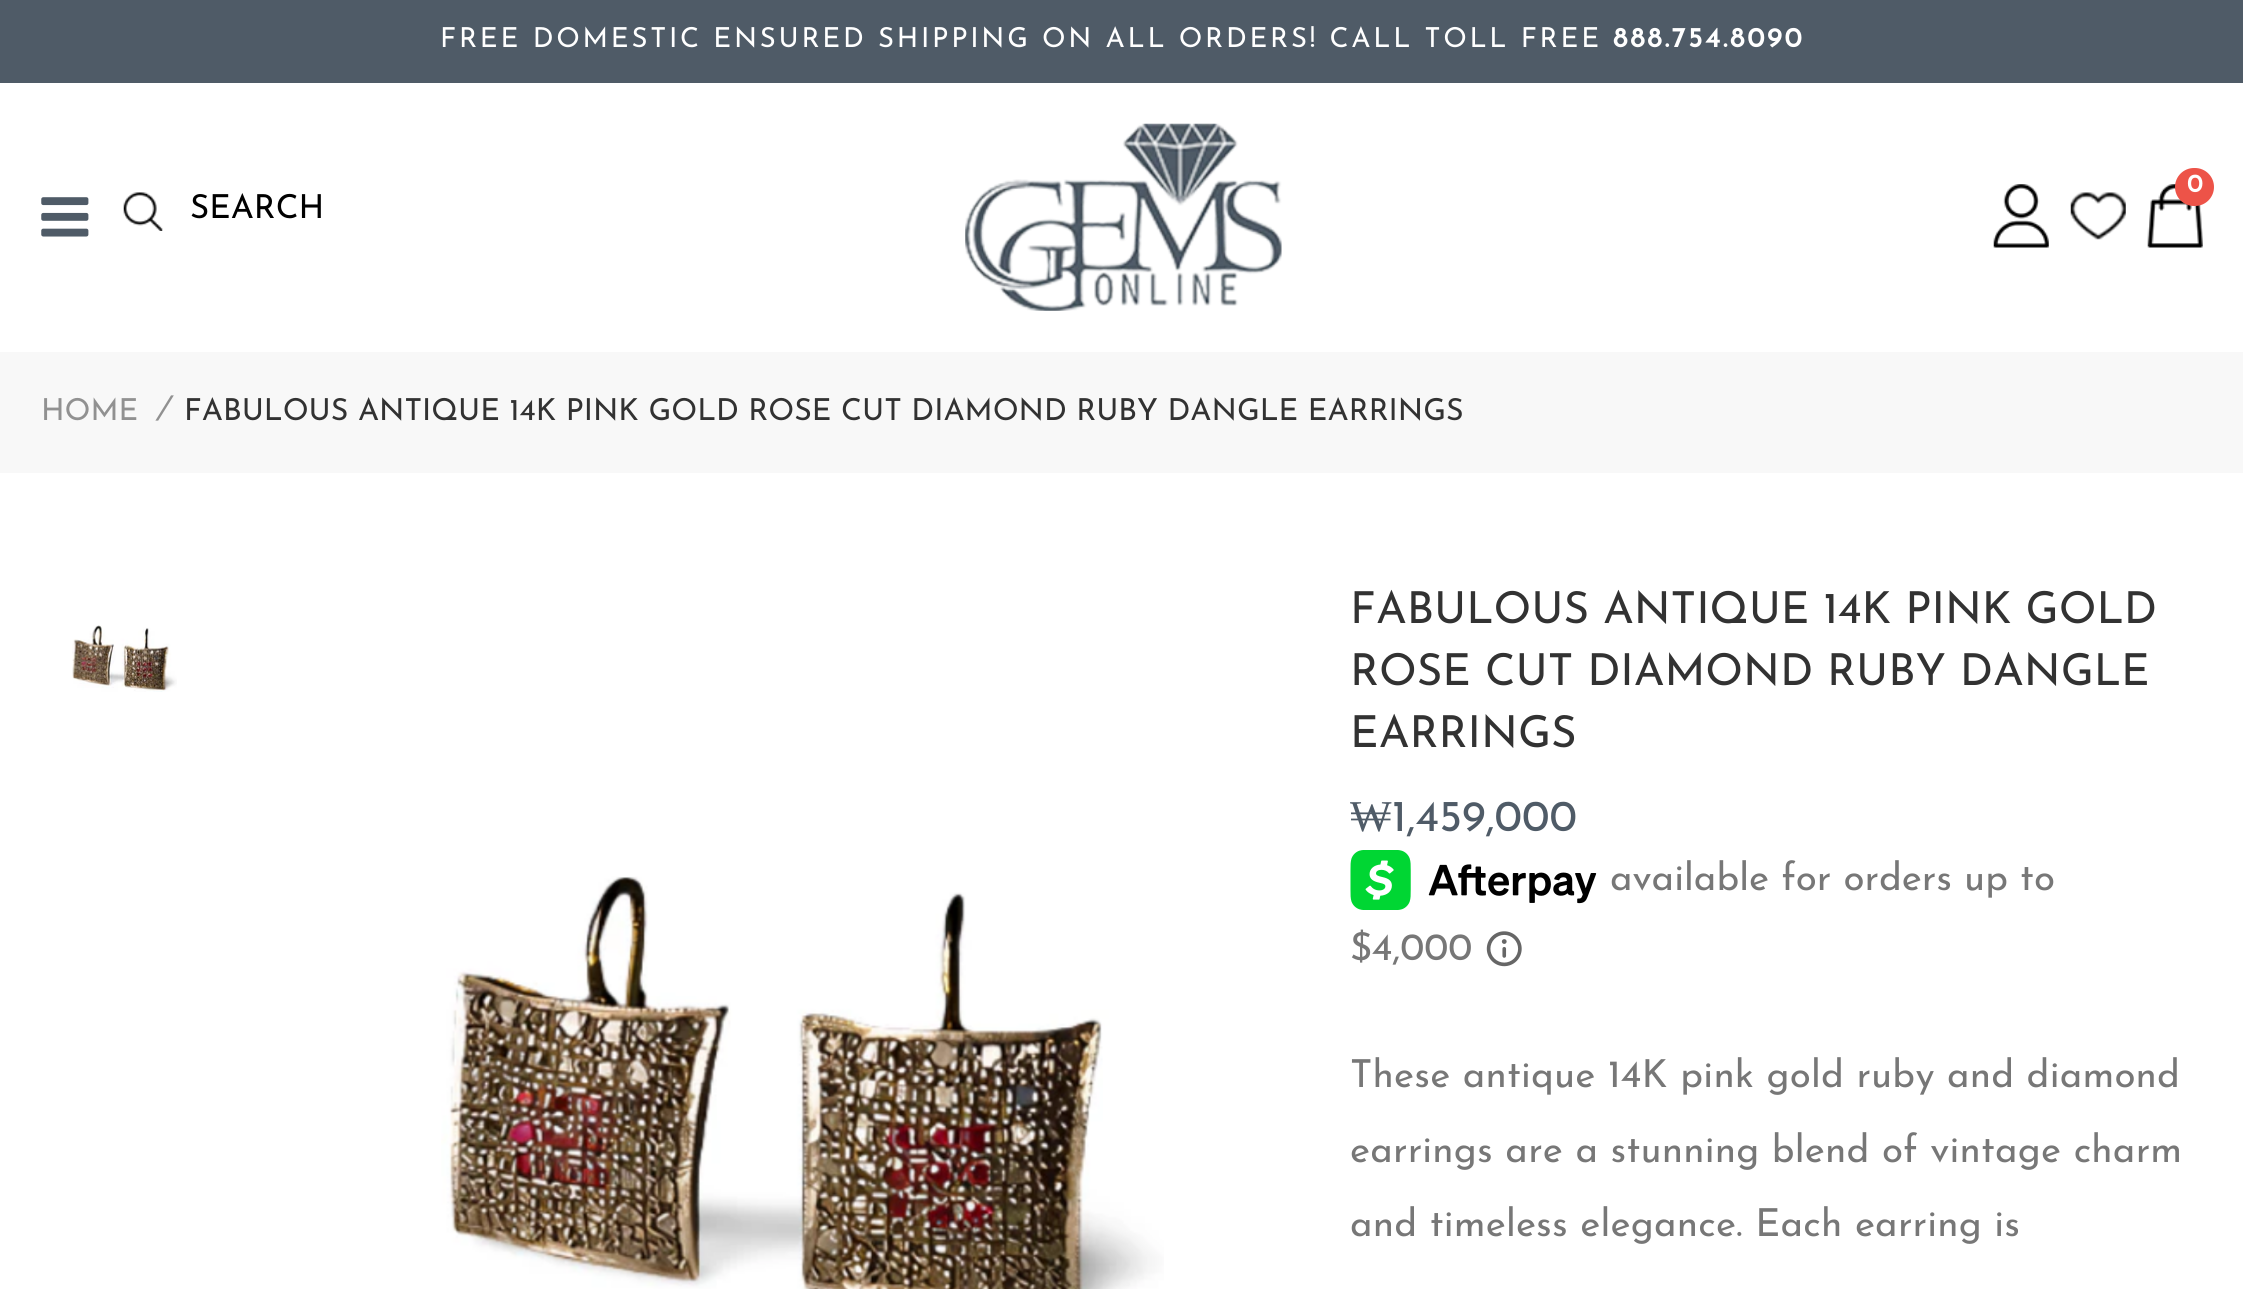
#include <cairo/cairo.h>
#include <math.h>
#include <stddef.h>


static void draw_spaced(cairo_t *cr, double x, double y, const char *s, double letter, double word) {
  cairo_move_to(cr, x, y);
  while (*s) {
    char ch[5] = {0};
    int n = 0;
    do ch[n++] = *s++; while ((*s & 0xC0) == 0x80);
    cairo_show_text(cr, ch);
    cairo_rel_move_to(cr, letter + word * (*ch == ' '), 0);
  }
}

static void rounded_rect(cairo_t *cr, double x, double y, double w, double h, double r) {
  cairo_new_sub_path(cr);
  cairo_arc(cr, x + w - r, y + h - r, r, 0, M_PI / 2);
  cairo_arc(cr, x + r, y + h - r, r, M_PI / 2, M_PI);
  cairo_arc(cr, x + r, y + r, r, M_PI, 1.5 * M_PI);
  cairo_arc(cr, x + w - r, y + r, r, 1.5 * M_PI, 2 * M_PI);
  cairo_close_path(cr);
}

static void draw_image(cairo_t *cr, const char *path, double x, double y, double w, double h) {
  cairo_surface_t *image = cairo_image_surface_create_from_png(path);
  cairo_save(cr);
  cairo_set_source_surface(cr, image, x, y);
  cairo_rectangle(cr, x, y, w, h);
  cairo_fill(cr);
  cairo_restore(cr);
  cairo_surface_destroy(image);
}

static void draw(cairo_t *cr) {
  cairo_set_source_rgb(cr, 1, 1, 1);
  cairo_paint(cr);
  cairo_set_source_rgb(cr, 79 / 255.0, 91 / 255.0, 103 / 255.0);
  cairo_rectangle(cr, 0, 0, 2243, 83);
  cairo_fill(cr);
  draw_image(cr, "images/1.png", 965, 123, 317, 188);
  draw_image(cr, "images/2.png", 1993, 184, 56, 64);
  draw_image(cr, "images/3.png", 2070, 192, 56, 48);
  draw_image(cr, "images/4.png", 2147, 184, 56, 64);
  cairo_set_source_rgb(cr, 237 / 255.0, 83 / 255.0, 72 / 255.0);
  rounded_rect(cr, 2175, 168, 39, 38, 19);
  cairo_fill(cr);
  draw_image(cr, "images/5.png", 41, 197, 48, 40);
  draw_image(cr, "images/6.png", 123, 192, 40, 39);
  cairo_set_source_rgb(cr, 248 / 255.0, 248 / 255.0, 248 / 255.0);
  cairo_rectangle(cr, 0, 352, 2243, 121);
  cairo_fill(cr);
  draw_image(cr, "images/7.png", 72, 625, 105, 67);
  draw_image(cr, "images/8.png", 441, 876, 723, 413);
  draw_image(cr, "images/9.png", 1350, 850, 247, 60);
  draw_image(cr, "images/10.png", 1486, 931, 36, 36);
  cairo_select_font_face(cr, "Josefin Sans", CAIRO_FONT_SLANT_NORMAL, CAIRO_FONT_WEIGHT_NORMAL);
  cairo_set_font_size(cr, 27.5);
  cairo_set_source_rgb(cr, 1, 1, 1);
  draw_spaced(cr, 440, 47, "FREE DOMESTIC ENSURED SHIPPING ON ALL ORDERS! CALL TOLL FREE", 2.75, 0);
  cairo_select_font_face(cr, "Josefin Sans", CAIRO_FONT_SLANT_NORMAL, CAIRO_FONT_WEIGHT_BOLD);
  draw_spaced(cr, 1613, 47, "888.754.8090", 2.75, 0);
  cairo_set_font_size(cr, 25);
  cairo_move_to(cr, 2187, 192);
  cairo_show_text(cr, "0");
  cairo_select_font_face(cr, "Josefin Sans", CAIRO_FONT_SLANT_NORMAL, CAIRO_FONT_WEIGHT_NORMAL);
  cairo_set_font_size(cr, 33);
  cairo_set_source_rgb(cr, 0, 0, 0);
  cairo_move_to(cr, 190, 218);
  cairo_show_text(cr, "SEARCH");
  cairo_set_font_size(cr, 30.25);
  cairo_set_source_rgb(cr, 145 / 255.0, 145 / 255.0, 145 / 255.0);
  cairo_move_to(cr, 41, 420);
  cairo_show_text(cr, "HOME");
  cairo_select_font_face(cr, "Josefin Sans", CAIRO_FONT_SLANT_ITALIC, CAIRO_FONT_WEIGHT_NORMAL);
  cairo_set_font_size(cr, 33);
  cairo_move_to(cr, 155, 420);
  cairo_show_text(cr, "/");
  cairo_select_font_face(cr, "Josefin Sans", CAIRO_FONT_SLANT_NORMAL, CAIRO_FONT_WEIGHT_NORMAL);
  cairo_set_font_size(cr, 30.25);
  cairo_set_source_rgb(cr, 50 / 255.0, 50 / 255.0, 50 / 255.0);
  cairo_move_to(cr, 184, 420);
  cairo_show_text(cr, "FABULOUS ANTIQUE 14K PINK GOLD ROSE CUT DIAMOND RUBY DANGLE EARRINGS");
  cairo_set_font_size(cr, 44);
  cairo_move_to(cr, 1350, 623);
  cairo_show_text(cr, "FABULOUS ANTIQUE 14K PINK GOLD");
  cairo_move_to(cr, 1350, 685);
  cairo_show_text(cr, "ROSE CUT DIAMOND RUBY DANGLE");
  cairo_move_to(cr, 1350, 747);
  cairo_show_text(cr, "EARRINGS");
  cairo_select_font_face(cr, "Liberation Serif", CAIRO_FONT_SLANT_NORMAL, CAIRO_FONT_WEIGHT_NORMAL);
  cairo_set_source_rgb(cr, 79 / 255.0, 91 / 255.0, 103 / 255.0);
  cairo_move_to(cr, 1350, 831);
  cairo_show_text(cr, "₩");
  cairo_select_font_face(cr, "Josefin Sans", CAIRO_FONT_SLANT_NORMAL, CAIRO_FONT_WEIGHT_NORMAL);
  cairo_move_to(cr, 1392, 831);
  cairo_show_text(cr, "1,459,000");
  cairo_set_font_size(cr, 38.5);
  cairo_set_source_rgb(cr, 119 / 255.0, 119 / 255.0, 119 / 255.0);
  cairo_move_to(cr, 1610, 890);
  cairo_show_text(cr, "available for orders up to");
  cairo_move_to(cr, 1350, 960);
  cairo_show_text(cr, "$4,000");
  draw_spaced(cr, 1350, 1087, "These antique 14K pink gold ruby and diamond", 0.2, 0);
  draw_spaced(cr, 1350, 1162, "earrings are a stunning blend of vintage charm", 0.2, 0);
  draw_spaced(cr, 1350, 1236, "and timeless elegance. Each earring is", 0.2, 0);
}

int main(void) {
  cairo_surface_t *surface = cairo_image_surface_create(CAIRO_FORMAT_RGB24, 2243, 1289);
  cairo_t *cr = cairo_create(surface);
  cairo_font_options_t *options = cairo_font_options_create();
  cairo_font_options_set_hint_metrics(options, CAIRO_HINT_METRICS_OFF);
  cairo_font_options_set_hint_style(options, CAIRO_HINT_STYLE_NONE);
  cairo_set_font_options(cr, options);
  cairo_set_miter_limit(cr, 4);
  draw(cr);
  cairo_surface_write_to_png(surface, "out.png");
  cairo_font_options_destroy(options);
  cairo_destroy(cr);
  cairo_surface_destroy(surface);
  return 0;
}
